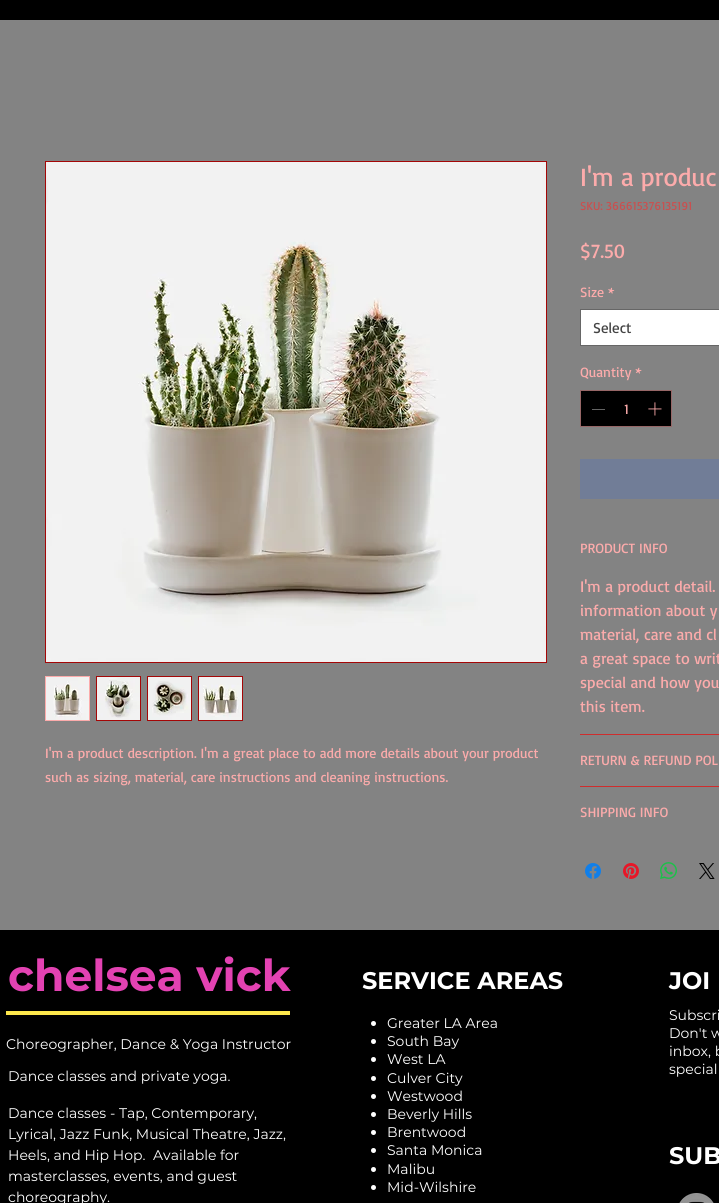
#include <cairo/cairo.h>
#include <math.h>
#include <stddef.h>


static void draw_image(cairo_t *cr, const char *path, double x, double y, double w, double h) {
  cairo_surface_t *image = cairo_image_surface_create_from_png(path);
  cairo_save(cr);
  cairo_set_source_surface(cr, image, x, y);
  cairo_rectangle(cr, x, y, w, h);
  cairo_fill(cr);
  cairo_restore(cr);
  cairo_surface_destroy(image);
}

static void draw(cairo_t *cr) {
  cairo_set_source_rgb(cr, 0, 0, 0);
  cairo_paint(cr);
  cairo_set_source_rgb(cr, 131 / 255.0, 131 / 255.0, 131 / 255.0);
  cairo_rectangle(cr, 0, 20, 719, 910);
  cairo_fill(cr);
  cairo_rectangle(cr, 45.5, 161.5, 501, 501);
  cairo_set_source_rgb(cr, 164 / 255.0, 6 / 255.0, 6 / 255.0);
  cairo_set_line_width(cr, 1);
  cairo_stroke(cr);
  draw_image(cr, "images/1.png", 46, 162, 500, 500);
  cairo_rectangle(cr, 45.5, 676.5, 44, 44);
  cairo_set_source_rgb(cr, 252 / 255.0, 171 / 255.0, 171 / 255.0);
  cairo_stroke(cr);
  draw_image(cr, "images/2.png", 46, 677, 43, 43);
  cairo_set_source_rgb(cr, 164 / 255.0, 6 / 255.0, 6 / 255.0);
  cairo_rectangle(cr, 96, 676, 45, 45);
  cairo_fill(cr);
  draw_image(cr, "images/3.png", 97, 677, 43, 43);
  cairo_rectangle(cr, 147, 676, 45, 45);
  cairo_fill(cr);
  draw_image(cr, "images/4.png", 148, 677, 43, 43);
  cairo_rectangle(cr, 198, 676, 45, 45);
  cairo_fill(cr);
  draw_image(cr, "images/5.png", 199, 677, 43, 43);
  cairo_set_source_rgb(cr, 1, 1, 1);
  cairo_rectangle(cr, 580.5, 309.5, 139, 36);
  cairo_fill_preserve(cr);
  cairo_set_source_rgb(cr, 102 / 255.0, 102 / 255.0, 102 / 255.0);
  cairo_stroke(cr);
  cairo_set_source_rgb(cr, 0, 0, 0);
  cairo_rectangle(cr, 580.5, 390.5, 91, 36);
  cairo_fill_preserve(cr);
  cairo_set_source_rgb(cr, 151 / 255.0, 103 / 255.0, 103 / 255.0);
  cairo_stroke(cr);
  cairo_set_source_rgb(cr, 100 / 255.0, 100 / 255.0, 100 / 255.0);
  cairo_rectangle(cr, 592, 409, 13, 1);
  cairo_fill(cr);
  draw_image(cr, "images/6.png", 648, 402, 14, 14);
  cairo_set_source_rgb(cr, 113 / 255.0, 125 / 255.0, 151 / 255.0);
  cairo_rectangle(cr, 580, 459, 139, 40);
  cairo_fill(cr);
  cairo_set_source_rgb(cr, 207 / 255.0, 45 / 255.0, 45 / 255.0);
  cairo_rectangle(cr, 580, 734, 139, 1);
  cairo_fill(cr);
  cairo_rectangle(cr, 580, 786, 139, 1);
  cairo_fill(cr);
  draw_image(cr, "images/7.png", 585, 863, 16, 16);
  draw_image(cr, "images/8.png", 623, 863, 16, 16);
  draw_image(cr, "images/9.png", 660, 862, 17, 17);
  draw_image(cr, "images/10.png", 699, 863, 16, 16);
  cairo_set_source_rgb(cr, 253 / 255.0, 231 / 255.0, 76 / 255.0);
  cairo_rectangle(cr, 6, 1011, 284, 4);
  cairo_fill(cr);
  cairo_set_source_rgb(cr, 1, 1, 1);
  cairo_arc(cr, 373.5, 1023.5, 2.5, 0, 2 * M_PI);
  cairo_fill(cr);
  cairo_arc(cr, 373.5, 1041.5, 2.5, 0, 2 * M_PI);
  cairo_fill(cr);
  cairo_arc(cr, 373.5, 1059.5, 2.5, 0, 2 * M_PI);
  cairo_fill(cr);
  cairo_arc(cr, 373.5, 1078.5, 2.5, 0, 2 * M_PI);
  cairo_fill(cr);
  cairo_arc(cr, 373.5, 1096.5, 2.5, 0, 2 * M_PI);
  cairo_fill(cr);
  cairo_arc(cr, 373.5, 1114.5, 2.5, 0, 2 * M_PI);
  cairo_fill(cr);
  cairo_arc(cr, 373.5, 1132.5, 2.5, 0, 2 * M_PI);
  cairo_fill(cr);
  cairo_arc(cr, 373.5, 1150.5, 2.5, 0, 2 * M_PI);
  cairo_fill(cr);
  cairo_arc(cr, 373.5, 1169.5, 2.5, 0, 2 * M_PI);
  cairo_fill(cr);
  cairo_arc(cr, 373.5, 1187.5, 2.5, 0, 2 * M_PI);
  cairo_fill(cr);
  draw_image(cr, "images/11.png", 679, 1193, 35, 10);
  cairo_select_font_face(cr, "Basic", CAIRO_FONT_SLANT_NORMAL, CAIRO_FONT_WEIGHT_NORMAL);
  cairo_set_font_size(cr, 14);
  cairo_set_source_rgb(cr, 252 / 255.0, 171 / 255.0, 171 / 255.0);
  cairo_move_to(cr, 45, 758);
  cairo_show_text(cr, "I'm a product description. I'm a great place to add more details about your product");
  cairo_move_to(cr, 45, 782);
  cairo_show_text(cr, "such as sizing, material, care instructions and cleaning instructions.");
  cairo_set_font_size(cr, 26);
  cairo_move_to(cr, 580, 186);
  cairo_show_text(cr, "I'm a produc");
  cairo_set_font_size(cr, 12);
  cairo_set_source_rgb(cr, 200 / 255.0, 80 / 255.0, 80 / 255.0);
  cairo_move_to(cr, 580, 210);
  cairo_show_text(cr, "SKU: 366615376135191");
  cairo_set_font_size(cr, 20);
  cairo_set_source_rgb(cr, 252 / 255.0, 171 / 255.0, 171 / 255.0);
  cairo_move_to(cr, 580, 258);
  cairo_show_text(cr, "$7.50");
  cairo_set_font_size(cr, 14);
  cairo_move_to(cr, 580, 297);
  cairo_show_text(cr, "Size *");
  cairo_set_font_size(cr, 15);
  cairo_set_source_rgb(cr, 68 / 255.0, 68 / 255.0, 68 / 255.0);
  cairo_move_to(cr, 593, 333);
  cairo_show_text(cr, "Select");
  cairo_set_font_size(cr, 14);
  cairo_set_source_rgb(cr, 252 / 255.0, 171 / 255.0, 171 / 255.0);
  cairo_move_to(cr, 580, 377);
  cairo_show_text(cr, "Quantity *");
  cairo_move_to(cr, 624, 414);
  cairo_show_text(cr, "1");
  cairo_move_to(cr, 580, 553);
  cairo_show_text(cr, "PRODUCT INFO");
  cairo_set_font_size(cr, 16);
  cairo_move_to(cr, 580, 592);
  cairo_show_text(cr, "I'm a product detail.");
  cairo_move_to(cr, 580, 616);
  cairo_show_text(cr, "information about y");
  cairo_move_to(cr, 580, 640);
  cairo_show_text(cr, "material, care and cl");
  cairo_move_to(cr, 580, 664);
  cairo_show_text(cr, "a great space to writ");
  cairo_move_to(cr, 580, 688);
  cairo_show_text(cr, "special and how you");
  cairo_move_to(cr, 580, 712);
  cairo_show_text(cr, "this item.");
  cairo_set_font_size(cr, 14);
  cairo_move_to(cr, 580, 765);
  cairo_show_text(cr, "RETURN & REFUND POL");
  cairo_move_to(cr, 580, 817);
  cairo_show_text(cr, "SHIPPING INFO");
  cairo_select_font_face(cr, "Montserrat", CAIRO_FONT_SLANT_NORMAL, CAIRO_FONT_WEIGHT_BOLD);
  cairo_set_font_size(cr, 44);
  cairo_set_source_rgb(cr, 227 / 255.0, 66 / 255.0, 178 / 255.0);
  cairo_move_to(cr, 8, 991);
  cairo_show_text(cr, "chelsea vick");
  cairo_select_font_face(cr, "Montserrat", CAIRO_FONT_SLANT_NORMAL, CAIRO_FONT_WEIGHT_NORMAL);
  cairo_set_font_size(cr, 14);
  cairo_set_source_rgb(cr, 1, 1, 1);
  cairo_move_to(cr, 6, 1049);
  cairo_show_text(cr, "Choreographer, Dance & Yoga Instructor");
  cairo_move_to(cr, 8, 1081);
  cairo_show_text(cr, "Dance classes and private yoga.");
  cairo_move_to(cr, 8, 1118);
  cairo_show_text(cr, "Dance classes - Tap, Contemporary,");
  cairo_move_to(cr, 8, 1139);
  cairo_show_text(cr, "Lyrical, Jazz Funk, Musical Theatre, Jazz,");
  cairo_move_to(cr, 8, 1160);
  cairo_show_text(cr, "Heels, and Hip Hop.");
  cairo_move_to(cr, 153, 1160);
  cairo_show_text(cr, "Available for");
  cairo_move_to(cr, 8, 1181);
  cairo_show_text(cr, "masterclasses, events, and guest");
  cairo_move_to(cr, 8, 1202);
  cairo_show_text(cr, "choreography.");
  cairo_select_font_face(cr, "Montserrat", CAIRO_FONT_SLANT_NORMAL, CAIRO_FONT_WEIGHT_BOLD);
  cairo_set_font_size(cr, 24);
  cairo_move_to(cr, 362, 989);
  cairo_show_text(cr, "SERVICE AREAS");
  cairo_select_font_face(cr, "Montserrat", CAIRO_FONT_SLANT_NORMAL, CAIRO_FONT_WEIGHT_NORMAL);
  cairo_set_font_size(cr, 14);
  cairo_move_to(cr, 387, 1028);
  cairo_show_text(cr, "Greater LA Area");
  cairo_move_to(cr, 387, 1046);
  cairo_show_text(cr, "South Bay");
  cairo_move_to(cr, 387, 1064);
  cairo_show_text(cr, "West LA");
  cairo_move_to(cr, 387, 1083);
  cairo_show_text(cr, "Culver City");
  cairo_move_to(cr, 387, 1101);
  cairo_show_text(cr, "Westwood");
  cairo_move_to(cr, 387, 1119);
  cairo_show_text(cr, "Beverly Hills");
  cairo_move_to(cr, 387, 1137);
  cairo_show_text(cr, "Brentwood");
  cairo_move_to(cr, 387, 1155);
  cairo_show_text(cr, "Santa Monica");
  cairo_move_to(cr, 387, 1174);
  cairo_show_text(cr, "Malibu");
  cairo_move_to(cr, 387, 1192);
  cairo_show_text(cr, "Mid-Wilshire");
  cairo_select_font_face(cr, "Montserrat", CAIRO_FONT_SLANT_NORMAL, CAIRO_FONT_WEIGHT_BOLD);
  cairo_set_font_size(cr, 24);
  cairo_move_to(cr, 669, 989);
  cairo_show_text(cr, "JOI");
  cairo_select_font_face(cr, "Montserrat", CAIRO_FONT_SLANT_NORMAL, CAIRO_FONT_WEIGHT_NORMAL);
  cairo_set_font_size(cr, 14);
  cairo_move_to(cr, 669, 1020);
  cairo_show_text(cr, "Subscri");
  cairo_move_to(cr, 669, 1038);
  cairo_show_text(cr, "Don't w");
  cairo_move_to(cr, 669, 1056);
  cairo_show_text(cr, "inbox, b");
  cairo_move_to(cr, 669, 1074);
  cairo_show_text(cr, "special");
  cairo_select_font_face(cr, "Montserrat", CAIRO_FONT_SLANT_NORMAL, CAIRO_FONT_WEIGHT_BOLD);
  cairo_set_font_size(cr, 24);
  cairo_move_to(cr, 669, 1164);
  cairo_show_text(cr, "SUB");
}

int main(void) {
  cairo_surface_t *surface = cairo_image_surface_create(CAIRO_FORMAT_RGB24, 719, 1203);
  cairo_t *cr = cairo_create(surface);
  cairo_font_options_t *options = cairo_font_options_create();
  cairo_font_options_set_hint_metrics(options, CAIRO_HINT_METRICS_OFF);
  cairo_font_options_set_hint_style(options, CAIRO_HINT_STYLE_NONE);
  cairo_set_font_options(cr, options);
  cairo_set_miter_limit(cr, 4);
  draw(cr);
  cairo_surface_write_to_png(surface, "out.png");
  cairo_font_options_destroy(options);
  cairo_destroy(cr);
  cairo_surface_destroy(surface);
  return 0;
}
